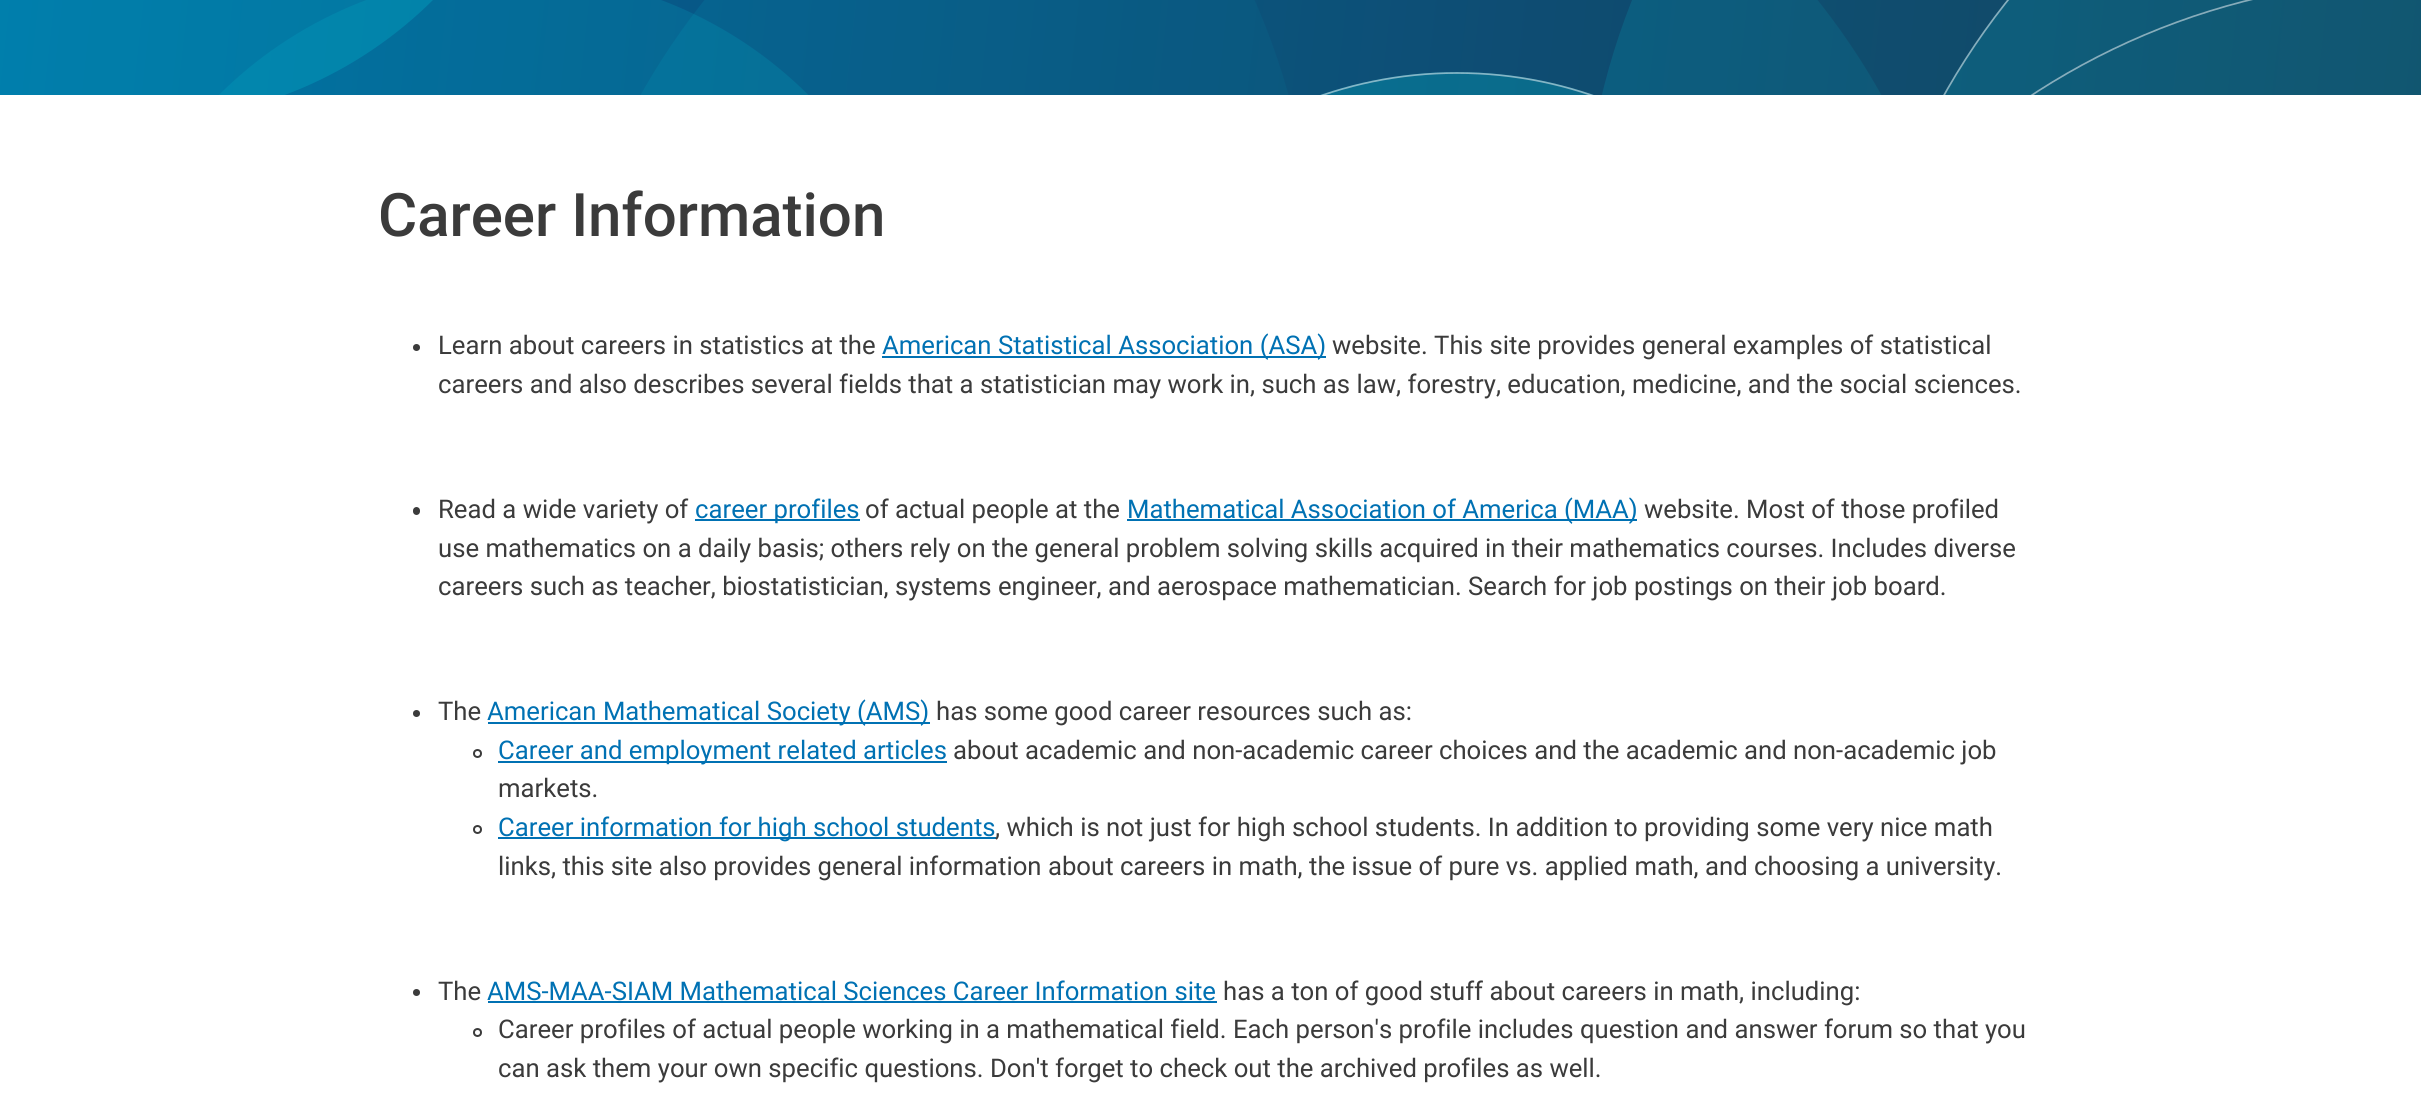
#include <cairo/cairo.h>
#include <math.h>
#include <stddef.h>


static void rounded_rect(cairo_t *cr, double x, double y, double w, double h, double r) {
  cairo_new_sub_path(cr);
  cairo_arc(cr, x + w - r, y + h - r, r, 0, M_PI / 2);
  cairo_arc(cr, x + r, y + h - r, r, M_PI / 2, M_PI);
  cairo_arc(cr, x + r, y + r, r, M_PI, 1.5 * M_PI);
  cairo_arc(cr, x + w - r, y + r, r, 1.5 * M_PI, 2 * M_PI);
  cairo_close_path(cr);
}

static void draw_image(cairo_t *cr, const char *path, double x, double y, double w, double h) {
  cairo_surface_t *image = cairo_image_surface_create_from_png(path);
  cairo_save(cr);
  cairo_set_source_surface(cr, image, x, y);
  cairo_rectangle(cr, x, y, w, h);
  cairo_fill(cr);
  cairo_restore(cr);
  cairo_surface_destroy(image);
}

static void draw(cairo_t *cr) {
  cairo_set_source_rgb(cr, 1, 1, 1);
  cairo_paint(cr);
  draw_image(cr, "images/1.png", 0, 0, 2421, 95);
  cairo_set_source_rgb(cr, 59 / 255.0, 59 / 255.0, 59 / 255.0);
  cairo_arc(cr, 416.5, 347.5, 3.5, 0, 2 * M_PI);
  cairo_fill(cr);
  cairo_set_source_rgb(cr, 0, 113 / 255.0, 179 / 255.0);
  cairo_rectangle(cr, 882, 356, 444, 2);
  cairo_fill(cr);
  cairo_set_source_rgb(cr, 59 / 255.0, 59 / 255.0, 59 / 255.0);
  rounded_rect(cr, 413, 507, 7, 8, 3.5);
  cairo_fill(cr);
  cairo_set_source_rgb(cr, 0, 113 / 255.0, 179 / 255.0);
  cairo_rectangle(cr, 695, 519, 165, 2);
  cairo_fill(cr);
  cairo_rectangle(cr, 1127, 519, 510, 2);
  cairo_fill(cr);
  cairo_set_source_rgb(cr, 59 / 255.0, 59 / 255.0, 59 / 255.0);
  cairo_arc(cr, 416.5, 713.5, 3.5, 0, 2 * M_PI);
  cairo_fill(cr);
  cairo_set_source_rgb(cr, 0, 113 / 255.0, 179 / 255.0);
  cairo_rectangle(cr, 488, 722, 442, 2);
  cairo_fill(cr);
  cairo_arc(cr, 477.5, 753.5, 3.5, 0, 2 * M_PI);
  cairo_set_source_rgb(cr, 59 / 255.0, 59 / 255.0, 59 / 255.0);
  cairo_stroke(cr);
  cairo_set_source_rgb(cr, 0, 113 / 255.0, 179 / 255.0);
  cairo_rectangle(cr, 498, 761, 449, 2);
  cairo_fill(cr);
  cairo_arc(cr, 477.5, 829.5, 3.5, 0, 2 * M_PI);
  cairo_set_source_rgb(cr, 59 / 255.0, 59 / 255.0, 59 / 255.0);
  cairo_stroke(cr);
  cairo_set_source_rgb(cr, 0, 113 / 255.0, 179 / 255.0);
  cairo_rectangle(cr, 498, 837, 498, 2);
  cairo_fill(cr);
  cairo_set_source_rgb(cr, 59 / 255.0, 59 / 255.0, 59 / 255.0);
  cairo_arc(cr, 416.5, 992.5, 3.5, 0, 2 * M_PI);
  cairo_fill(cr);
  cairo_set_source_rgb(cr, 0, 113 / 255.0, 179 / 255.0);
  cairo_rectangle(cr, 488, 1001, 729, 2);
  cairo_fill(cr);
  cairo_arc(cr, 477.5, 1032.5, 3.5, 0, 2 * M_PI);
  cairo_set_source_rgb(cr, 59 / 255.0, 59 / 255.0, 59 / 255.0);
  cairo_stroke(cr);
  cairo_select_font_face(cr, "Roboto Medium", CAIRO_FONT_SLANT_NORMAL, CAIRO_FONT_WEIGHT_NORMAL);
  cairo_set_font_size(cr, 60);
  cairo_move_to(cr, 378, 236);
  cairo_show_text(cr, "Career Information");
  cairo_select_font_face(cr, "Roboto", CAIRO_FONT_SLANT_NORMAL, CAIRO_FONT_WEIGHT_NORMAL);
  cairo_set_font_size(cr, 25.7);
  cairo_move_to(cr, 438, 354);
  cairo_show_text(cr, "Learn about careers in statistics at the");
  cairo_set_source_rgb(cr, 0, 113 / 255.0, 179 / 255.0);
  cairo_move_to(cr, 882, 354);
  cairo_show_text(cr, "American Statistical Association (ASA)");
  cairo_set_source_rgb(cr, 59 / 255.0, 59 / 255.0, 59 / 255.0);
  cairo_move_to(cr, 1332, 354);
  cairo_show_text(cr, "website. This site provides general examples of statistical");
  cairo_move_to(cr, 438, 393);
  cairo_show_text(cr, "careers and also describes several fields that a statistician may work in, such as law, forestry, education, medicine, and the social sciences.");
  cairo_move_to(cr, 438, 518);
  cairo_show_text(cr, "Read a wide variety of");
  cairo_set_source_rgb(cr, 0, 113 / 255.0, 179 / 255.0);
  cairo_move_to(cr, 695, 518);
  cairo_show_text(cr, "career profiles");
  cairo_set_source_rgb(cr, 59 / 255.0, 59 / 255.0, 59 / 255.0);
  cairo_move_to(cr, 865, 518);
  cairo_show_text(cr, "of actual people at the");
  cairo_set_source_rgb(cr, 0, 113 / 255.0, 179 / 255.0);
  cairo_move_to(cr, 1127, 518);
  cairo_show_text(cr, "Mathematical Association of America (MAA)");
  cairo_set_source_rgb(cr, 59 / 255.0, 59 / 255.0, 59 / 255.0);
  cairo_move_to(cr, 1644, 518);
  cairo_show_text(cr, "website. Most of those profiled");
  cairo_move_to(cr, 438, 557);
  cairo_show_text(cr, "use mathematics on a daily basis; others rely on the general problem solving skills acquired in their mathematics courses. Includes diverse");
  cairo_move_to(cr, 438, 595);
  cairo_show_text(cr, "careers such as teacher, biostatistician, systems engineer, and aerospace mathematician. Search for job postings on their job board.");
  cairo_move_to(cr, 438, 720);
  cairo_show_text(cr, "The");
  cairo_set_source_rgb(cr, 0, 113 / 255.0, 179 / 255.0);
  cairo_move_to(cr, 487, 720);
  cairo_show_text(cr, "American Mathematical Society (AMS)");
  cairo_set_source_rgb(cr, 59 / 255.0, 59 / 255.0, 59 / 255.0);
  cairo_move_to(cr, 936, 720);
  cairo_show_text(cr, "has some good career resources such as:");
  cairo_set_source_rgb(cr, 0, 113 / 255.0, 179 / 255.0);
  cairo_move_to(cr, 498, 759);
  cairo_show_text(cr, "Career and employment related articles");
  cairo_set_source_rgb(cr, 59 / 255.0, 59 / 255.0, 59 / 255.0);
  cairo_move_to(cr, 953, 759);
  cairo_show_text(cr, "about academic and non-academic career choices and the academic and non-academic job");
  cairo_move_to(cr, 498, 797);
  cairo_show_text(cr, "markets.");
  cairo_set_source_rgb(cr, 0, 113 / 255.0, 179 / 255.0);
  cairo_move_to(cr, 498, 836);
  cairo_show_text(cr, "Career information for high school students");
  cairo_set_source_rgb(cr, 59 / 255.0, 59 / 255.0, 59 / 255.0);
  cairo_move_to(cr, 995, 836);
  cairo_show_text(cr, ", which is not just for high school students. In addition to providing some very nice math");
  cairo_move_to(cr, 498, 875);
  cairo_show_text(cr, "links, this site also provides general information about careers in math, the issue of pure vs. applied math, and choosing a university.");
  cairo_move_to(cr, 438, 1000);
  cairo_show_text(cr, "The");
  cairo_set_source_rgb(cr, 0, 113 / 255.0, 179 / 255.0);
  cairo_move_to(cr, 487, 1000);
  cairo_show_text(cr, "AMS-MAA-SIAM Mathematical Sciences Career Information site");
  cairo_set_source_rgb(cr, 59 / 255.0, 59 / 255.0, 59 / 255.0);
  cairo_move_to(cr, 1223, 1000);
  cairo_show_text(cr, "has a ton of good stuff about careers in math, including:");
  cairo_move_to(cr, 498, 1038);
  cairo_show_text(cr, "Career profiles of actual people working in a mathematical field. Each person's profile includes question and answer forum so that you");
  cairo_move_to(cr, 498, 1077);
  cairo_show_text(cr, "can ask them your own specific questions. Don't forget to check out the archived profiles as well.");
}

int main(void) {
  cairo_surface_t *surface = cairo_image_surface_create(CAIRO_FORMAT_RGB24, 2421, 1099);
  cairo_t *cr = cairo_create(surface);
  cairo_font_options_t *options = cairo_font_options_create();
  cairo_font_options_set_hint_metrics(options, CAIRO_HINT_METRICS_OFF);
  cairo_font_options_set_hint_style(options, CAIRO_HINT_STYLE_NONE);
  cairo_set_font_options(cr, options);
  cairo_set_miter_limit(cr, 4);
  draw(cr);
  cairo_surface_write_to_png(surface, "out.png");
  cairo_font_options_destroy(options);
  cairo_destroy(cr);
  cairo_surface_destroy(surface);
  return 0;
}
